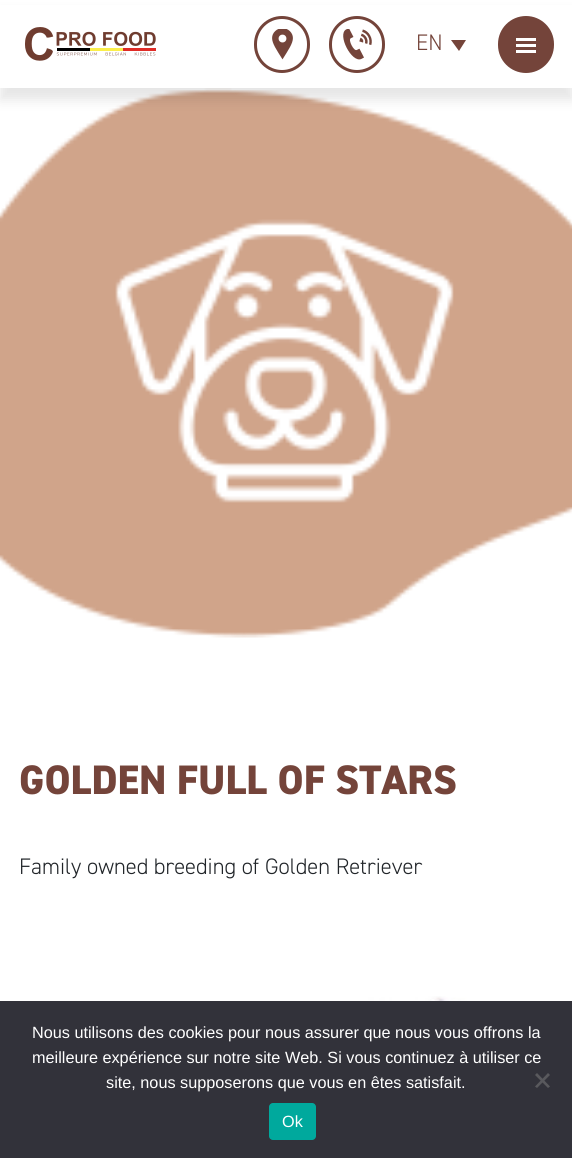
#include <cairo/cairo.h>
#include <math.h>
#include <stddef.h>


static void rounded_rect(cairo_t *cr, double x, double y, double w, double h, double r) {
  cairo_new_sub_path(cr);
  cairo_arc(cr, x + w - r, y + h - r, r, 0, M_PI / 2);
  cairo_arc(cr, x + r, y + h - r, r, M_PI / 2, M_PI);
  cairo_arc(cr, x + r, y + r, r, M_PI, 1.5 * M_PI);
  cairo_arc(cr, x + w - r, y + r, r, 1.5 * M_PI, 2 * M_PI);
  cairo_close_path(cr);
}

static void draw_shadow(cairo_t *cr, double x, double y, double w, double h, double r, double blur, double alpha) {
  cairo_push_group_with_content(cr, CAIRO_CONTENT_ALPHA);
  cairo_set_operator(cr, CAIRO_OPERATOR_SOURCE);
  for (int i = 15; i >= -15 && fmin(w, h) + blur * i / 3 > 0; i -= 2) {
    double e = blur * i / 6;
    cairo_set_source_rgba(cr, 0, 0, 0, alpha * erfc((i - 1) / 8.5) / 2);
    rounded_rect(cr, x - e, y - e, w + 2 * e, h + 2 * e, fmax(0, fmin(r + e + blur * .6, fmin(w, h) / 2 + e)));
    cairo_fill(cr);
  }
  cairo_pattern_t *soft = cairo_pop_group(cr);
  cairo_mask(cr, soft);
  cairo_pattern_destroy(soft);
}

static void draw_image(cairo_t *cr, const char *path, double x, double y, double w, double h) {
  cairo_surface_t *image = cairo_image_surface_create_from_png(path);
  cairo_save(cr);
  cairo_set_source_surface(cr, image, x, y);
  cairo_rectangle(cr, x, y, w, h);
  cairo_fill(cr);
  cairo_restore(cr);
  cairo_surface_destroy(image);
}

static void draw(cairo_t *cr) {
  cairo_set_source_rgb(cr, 1, 1, 1);
  cairo_paint(cr);
  draw_image(cr, "images/4.png", 0, 88, 572, 550);
  cairo_set_source_rgb(cr, 0, 0, 0);
  draw_shadow(cr, 0, 13, 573, 87, 0, 6, 0.1);
  cairo_set_source_rgb(cr, 1, 1, 1);
  cairo_rectangle(cr, 0, 5, 572, 83);
  cairo_fill(cr);
  draw_image(cr, "images/1.png", 25, 27, 131, 34);
  rounded_rect(cr, 255.5, 17.5, 53, 54, 26.5);
  cairo_set_source_rgb(cr, 116 / 255.0, 68 / 255.0, 58 / 255.0);
  cairo_set_line_width(cr, 3);
  cairo_stroke(cr);
  draw_image(cr, "images/2.png", 272, 29, 21, 31);
  rounded_rect(cr, 330.5, 17.5, 53, 54, 26.5);
  cairo_stroke(cr);
  draw_image(cr, "images/3.png", 343, 29, 29, 31);
  cairo_new_path(cr);
  cairo_move_to(cr, 451, 40);
  cairo_line_to(cr, 466, 40);
  cairo_line_to(cr, 459, 51);
  cairo_close_path(cr);
  cairo_fill(cr);
  rounded_rect(cr, 498, 16, 56, 57, 28);
  cairo_fill(cr);
  cairo_set_source_rgb(cr, 1, 1, 1);
  cairo_rectangle(cr, 516, 44, 20, 3);
  cairo_fill(cr);
  cairo_rectangle(cr, 516, 38, 20, 3);
  cairo_fill(cr);
  cairo_rectangle(cr, 516, 50, 20, 3);
  cairo_fill(cr);
  draw_image(cr, "images/5.png", 211, 996, 361, 5);
  cairo_set_source_rgb(cr, 50 / 255.0, 50 / 255.0, 58 / 255.0);
  cairo_rectangle(cr, 0, 1001, 572, 157);
  cairo_fill(cr);
  cairo_set_source_rgb(cr, 89 / 255.0, 89 / 255.0, 93 / 255.0);
  cairo_new_path(cr);
  cairo_move_to(cr, 548, 1073);
  cairo_line_to(cr, 550, 1075);
  cairo_line_to(cr, 537, 1088);
  cairo_line_to(cr, 535, 1086.5);
  cairo_close_path(cr);
  cairo_fill(cr);
  cairo_new_path(cr);
  cairo_move_to(cr, 535, 1075);
  cairo_line_to(cr, 537, 1073);
  cairo_line_to(cr, 550, 1086.5);
  cairo_line_to(cr, 548, 1088);
  cairo_close_path(cr);
  cairo_fill(cr);
  cairo_set_source_rgb(cr, 0, 169 / 255.0, 157 / 255.0);
  rounded_rect(cr, 269, 1103, 47, 37, 4);
  cairo_fill(cr);
  cairo_select_font_face(cr, "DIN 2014 Light", CAIRO_FONT_SLANT_NORMAL, CAIRO_FONT_WEIGHT_NORMAL);
  cairo_set_font_size(cr, 22.5);
  cairo_set_source_rgb(cr, 116 / 255.0, 68 / 255.0, 58 / 255.0);
  cairo_move_to(cr, 416, 50);
  cairo_show_text(cr, "EN");
  cairo_select_font_face(cr, "DIN 2014 ExtraBold", CAIRO_FONT_SLANT_NORMAL, CAIRO_FONT_WEIGHT_NORMAL);
  cairo_set_font_size(cr, 41.25);
  cairo_move_to(cr, 19, 794);
  cairo_show_text(cr, "GOLDEN FULL OF STARS");
  cairo_select_font_face(cr, "DIN 2014 Light", CAIRO_FONT_SLANT_NORMAL, CAIRO_FONT_WEIGHT_NORMAL);
  cairo_set_font_size(cr, 22.5);
  cairo_set_source_rgb(cr, 33 / 255.0, 37 / 255.0, 41 / 255.0);
  cairo_move_to(cr, 19, 874);
  cairo_show_text(cr, "Family owned breeding of Golden Retriever");
  cairo_select_font_face(cr, "Liberation Sans", CAIRO_FONT_SLANT_NORMAL, CAIRO_FONT_WEIGHT_NORMAL);
  cairo_set_font_size(cr, 16.25);
  cairo_set_source_rgb(cr, 1, 1, 1);
  cairo_move_to(cr, 32, 1038);
  cairo_show_text(cr, "Nous utilisons des cookies pour nous assurer que nous vous offrons la");
  cairo_move_to(cr, 32, 1063);
  cairo_show_text(cr, "meilleure expérience sur notre site Web. Si vous continuez à utiliser ce");
  cairo_move_to(cr, 106, 1088);
  cairo_show_text(cr, "site, nous supposerons que vous en êtes satisfait.");
  cairo_move_to(cr, 282, 1127);
  cairo_show_text(cr, "Ok");
}

int main(void) {
  cairo_surface_t *surface = cairo_image_surface_create(CAIRO_FORMAT_RGB24, 572, 1158);
  cairo_t *cr = cairo_create(surface);
  cairo_font_options_t *options = cairo_font_options_create();
  cairo_font_options_set_hint_metrics(options, CAIRO_HINT_METRICS_OFF);
  cairo_font_options_set_hint_style(options, CAIRO_HINT_STYLE_NONE);
  cairo_set_font_options(cr, options);
  cairo_set_miter_limit(cr, 4);
  draw(cr);
  cairo_surface_write_to_png(surface, "out.png");
  cairo_font_options_destroy(options);
  cairo_destroy(cr);
  cairo_surface_destroy(surface);
  return 0;
}
